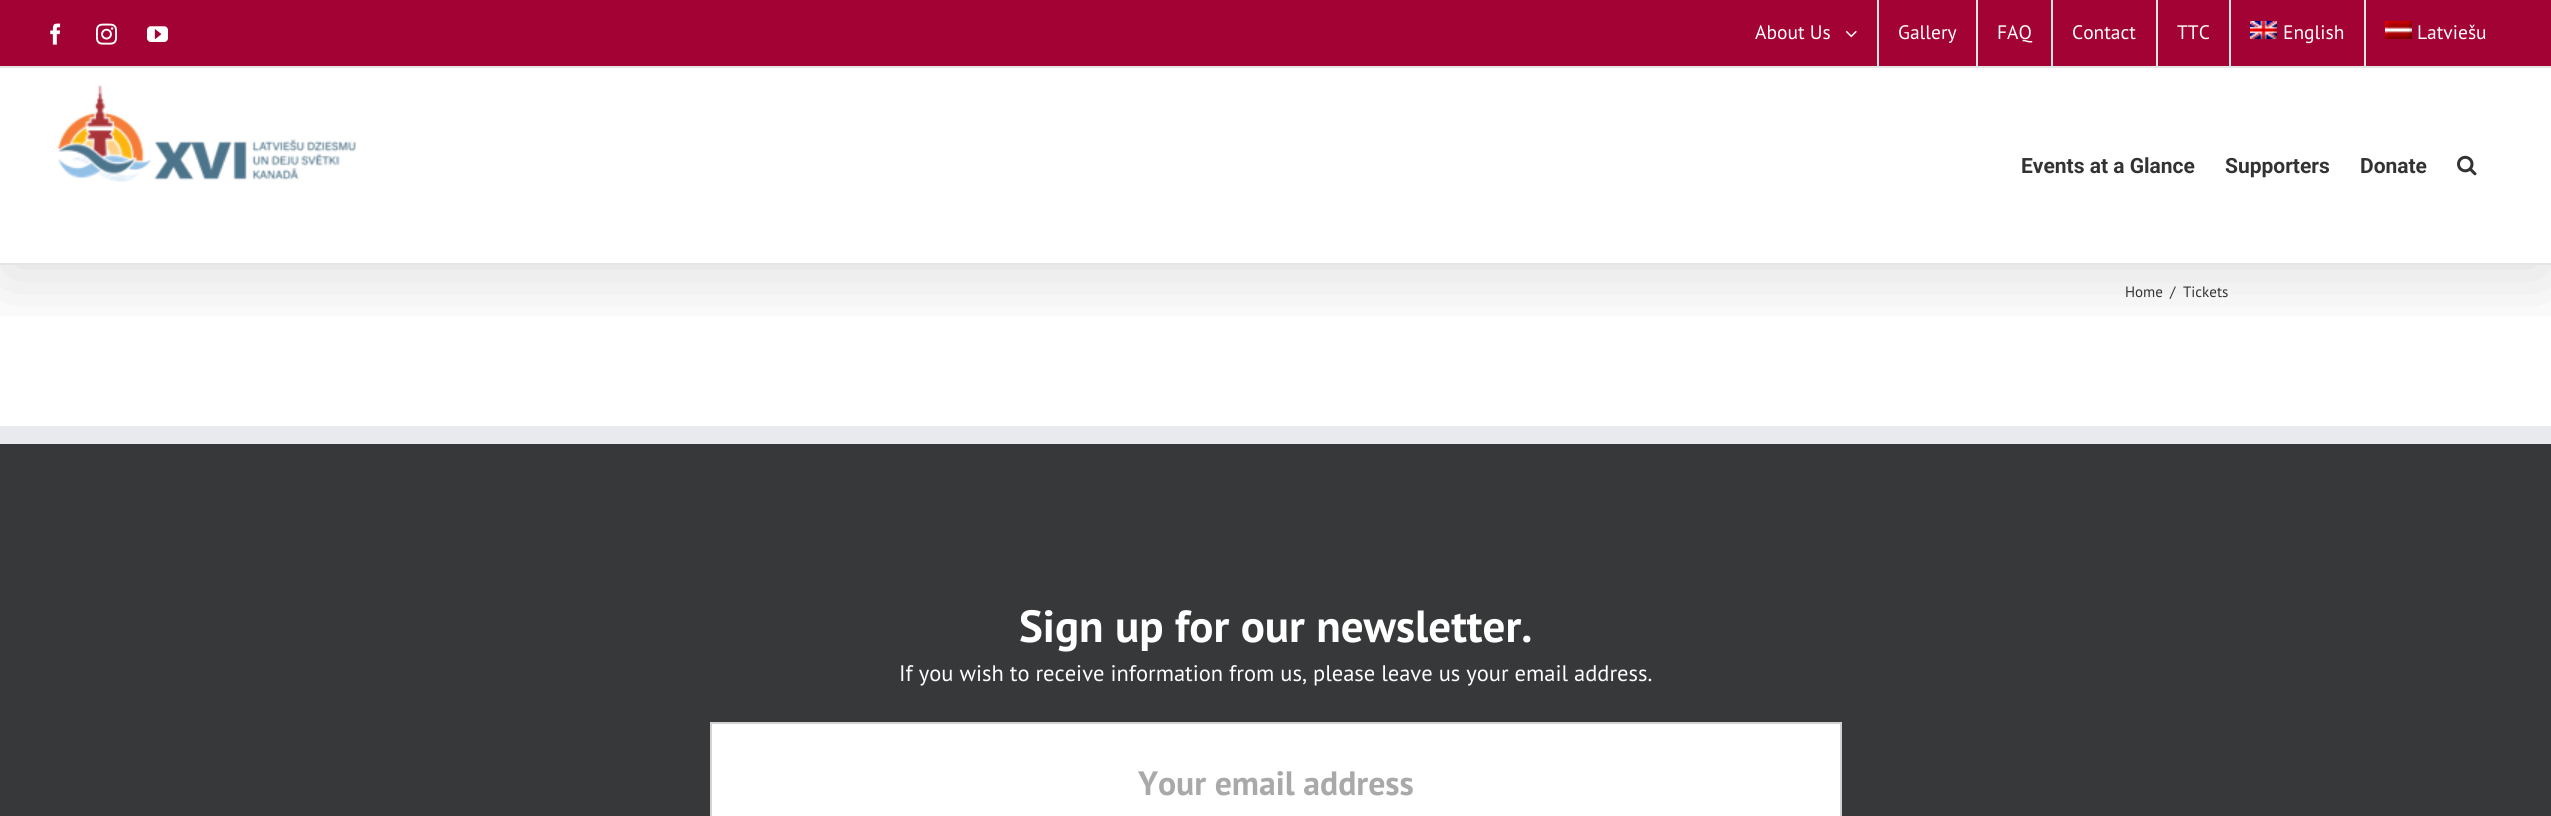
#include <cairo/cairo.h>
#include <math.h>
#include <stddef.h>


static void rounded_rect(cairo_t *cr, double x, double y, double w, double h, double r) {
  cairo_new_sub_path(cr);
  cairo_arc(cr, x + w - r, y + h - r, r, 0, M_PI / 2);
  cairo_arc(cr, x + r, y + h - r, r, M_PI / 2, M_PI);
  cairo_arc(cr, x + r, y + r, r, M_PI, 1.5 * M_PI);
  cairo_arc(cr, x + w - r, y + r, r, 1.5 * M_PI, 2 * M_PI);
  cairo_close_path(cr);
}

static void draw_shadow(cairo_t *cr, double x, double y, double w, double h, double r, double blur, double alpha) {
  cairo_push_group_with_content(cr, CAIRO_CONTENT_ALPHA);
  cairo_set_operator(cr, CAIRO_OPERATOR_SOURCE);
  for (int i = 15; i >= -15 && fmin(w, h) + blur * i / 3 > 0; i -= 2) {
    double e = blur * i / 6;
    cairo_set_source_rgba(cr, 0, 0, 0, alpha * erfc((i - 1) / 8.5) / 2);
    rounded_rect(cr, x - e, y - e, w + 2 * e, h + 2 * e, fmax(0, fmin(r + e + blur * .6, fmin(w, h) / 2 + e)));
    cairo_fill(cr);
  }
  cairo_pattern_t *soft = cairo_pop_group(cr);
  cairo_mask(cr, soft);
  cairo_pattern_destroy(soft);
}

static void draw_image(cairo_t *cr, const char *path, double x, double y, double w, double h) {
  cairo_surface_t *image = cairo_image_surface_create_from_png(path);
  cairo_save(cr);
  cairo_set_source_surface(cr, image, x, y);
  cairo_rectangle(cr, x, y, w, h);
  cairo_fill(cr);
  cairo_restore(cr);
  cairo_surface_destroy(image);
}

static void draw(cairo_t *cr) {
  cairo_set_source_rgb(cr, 1, 1, 1);
  cairo_paint(cr);
  cairo_save(cr);
  cairo_rectangle(cr, 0, 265, 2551, 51);
  cairo_clip(cr);
  cairo_set_source_rgb(cr, 0, 0, 0);
  draw_shadow(cr, 3, 18, 2546, 258, 0, 37.5, 0.14);
  cairo_restore(cr);
  cairo_set_source_rgb(cr, 163 / 255.0, 2 / 255.0, 52 / 255.0);
  cairo_rectangle(cr, 0, 0, 2551, 66);
  cairo_fill(cr);
  cairo_set_source_rgb(cr, 229 / 255.0, 229 / 255.0, 229 / 255.0);
  cairo_rectangle(cr, 0, 66, 2551, 2);
  cairo_fill(cr);
  draw_image(cr, "images/1.png", 50, 23, 11, 22);
  draw_image(cr, "images/2.png", 96, 23, 21, 22);
  draw_image(cr, "images/3.png", 147, 26, 21, 16);
  draw_image(cr, "images/4.png", 1845, 30, 12, 8);
  cairo_rectangle(cr, 1877, 0, 2, 66);
  cairo_fill(cr);
  cairo_rectangle(cr, 1976, 0, 2, 66);
  cairo_fill(cr);
  cairo_rectangle(cr, 2051, 0, 2, 66);
  cairo_fill(cr);
  cairo_rectangle(cr, 2156, 0, 2, 66);
  cairo_fill(cr);
  cairo_rectangle(cr, 2229, 0, 2, 66);
  cairo_fill(cr);
  draw_image(cr, "images/5.png", 2250, 21, 27, 18);
  cairo_rectangle(cr, 2364, 0, 2, 66);
  cairo_fill(cr);
  draw_image(cr, "images/6.png", 2385, 21, 27, 18);
  cairo_rectangle(cr, 0, 263, 2551, 2);
  cairo_fill(cr);
  draw_image(cr, "images/7.png", 58, 85, 298, 97);
  draw_image(cr, "images/8.png", 2457, 155, 20, 21);
  cairo_set_source_rgb(cr, 54 / 255.0, 56 / 255.0, 57 / 255.0);
  cairo_rectangle(cr, 0, 444, 2551, 372);
  cairo_fill(cr);
  cairo_set_source_rgb(cr, 233 / 255.0, 234 / 255.0, 238 / 255.0);
  cairo_rectangle(cr, 0, 426, 2551, 18);
  cairo_fill(cr);
  cairo_set_source_rgb(cr, 1, 1, 1);
  cairo_rectangle(cr, 711, 723, 1130, 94);
  cairo_fill_preserve(cr);
  cairo_set_source_rgb(cr, 210 / 255.0, 210 / 255.0, 210 / 255.0);
  cairo_stroke(cr);
  cairo_select_font_face(cr, "PT Sans", CAIRO_FONT_SLANT_NORMAL, CAIRO_FONT_WEIGHT_NORMAL);
  cairo_set_font_size(cr, 19.5);
  cairo_set_source_rgb(cr, 1, 1, 1);
  cairo_move_to(cr, 1755, 39);
  cairo_show_text(cr, "About Us");
  cairo_move_to(cr, 1898, 39);
  cairo_show_text(cr, "Gallery");
  cairo_move_to(cr, 1997, 39);
  cairo_show_text(cr, "FAQ");
  cairo_move_to(cr, 2072, 39);
  cairo_show_text(cr, "Contact");
  cairo_move_to(cr, 2177, 39);
  cairo_show_text(cr, "TTC");
  cairo_move_to(cr, 2283, 39);
  cairo_show_text(cr, "English");
  cairo_move_to(cr, 2417, 39);
  cairo_show_text(cr, "Latviešu");
  cairo_select_font_face(cr, "Roboto", CAIRO_FONT_SLANT_NORMAL, CAIRO_FONT_WEIGHT_BOLD);
  cairo_set_font_size(cr, 21);
  cairo_set_source_rgb(cr, 51 / 255.0, 51 / 255.0, 51 / 255.0);
  cairo_move_to(cr, 2021, 173);
  cairo_show_text(cr, "Events at a Glance");
  cairo_move_to(cr, 2225, 173);
  cairo_show_text(cr, "Supporters");
  cairo_move_to(cr, 2360, 173);
  cairo_show_text(cr, "Donate");
  cairo_select_font_face(cr, "PT Sans", CAIRO_FONT_SLANT_NORMAL, CAIRO_FONT_WEIGHT_NORMAL);
  cairo_set_font_size(cr, 15);
  cairo_move_to(cr, 2125, 297);
  cairo_show_text(cr, "Home");
  cairo_move_to(cr, 2170, 297);
  cairo_show_text(cr, "/");
  cairo_move_to(cr, 2183, 297);
  cairo_show_text(cr, "Tickets");
  cairo_select_font_face(cr, "PT Sans", CAIRO_FONT_SLANT_NORMAL, CAIRO_FONT_WEIGHT_BOLD);
  cairo_set_font_size(cr, 45);
  cairo_set_source_rgb(cr, 1, 1, 1);
  cairo_move_to(cr, 1019, 642);
  cairo_show_text(cr, "Sign up for our newsletter.");
  cairo_select_font_face(cr, "PT Sans", CAIRO_FONT_SLANT_NORMAL, CAIRO_FONT_WEIGHT_NORMAL);
  cairo_set_font_size(cr, 22.5);
  cairo_move_to(cr, 899, 681);
  cairo_show_text(cr, "If you wish to receive information from us, please leave us your email address.");
  cairo_select_font_face(cr, "PT Sans", CAIRO_FONT_SLANT_NORMAL, CAIRO_FONT_WEIGHT_BOLD);
  cairo_set_font_size(cr, 33.75);
  cairo_set_source_rgb(cr, 170 / 255.0, 169 / 255.0, 169 / 255.0);
  cairo_move_to(cr, 1138, 795);
  cairo_show_text(cr, "Your email address");
}

int main(void) {
  cairo_surface_t *surface = cairo_image_surface_create(CAIRO_FORMAT_RGB24, 2551, 816);
  cairo_t *cr = cairo_create(surface);
  cairo_font_options_t *options = cairo_font_options_create();
  cairo_font_options_set_hint_metrics(options, CAIRO_HINT_METRICS_OFF);
  cairo_font_options_set_hint_style(options, CAIRO_HINT_STYLE_NONE);
  cairo_set_font_options(cr, options);
  cairo_set_miter_limit(cr, 4);
  draw(cr);
  cairo_surface_write_to_png(surface, "out.png");
  cairo_font_options_destroy(options);
  cairo_destroy(cr);
  cairo_surface_destroy(surface);
  return 0;
}
